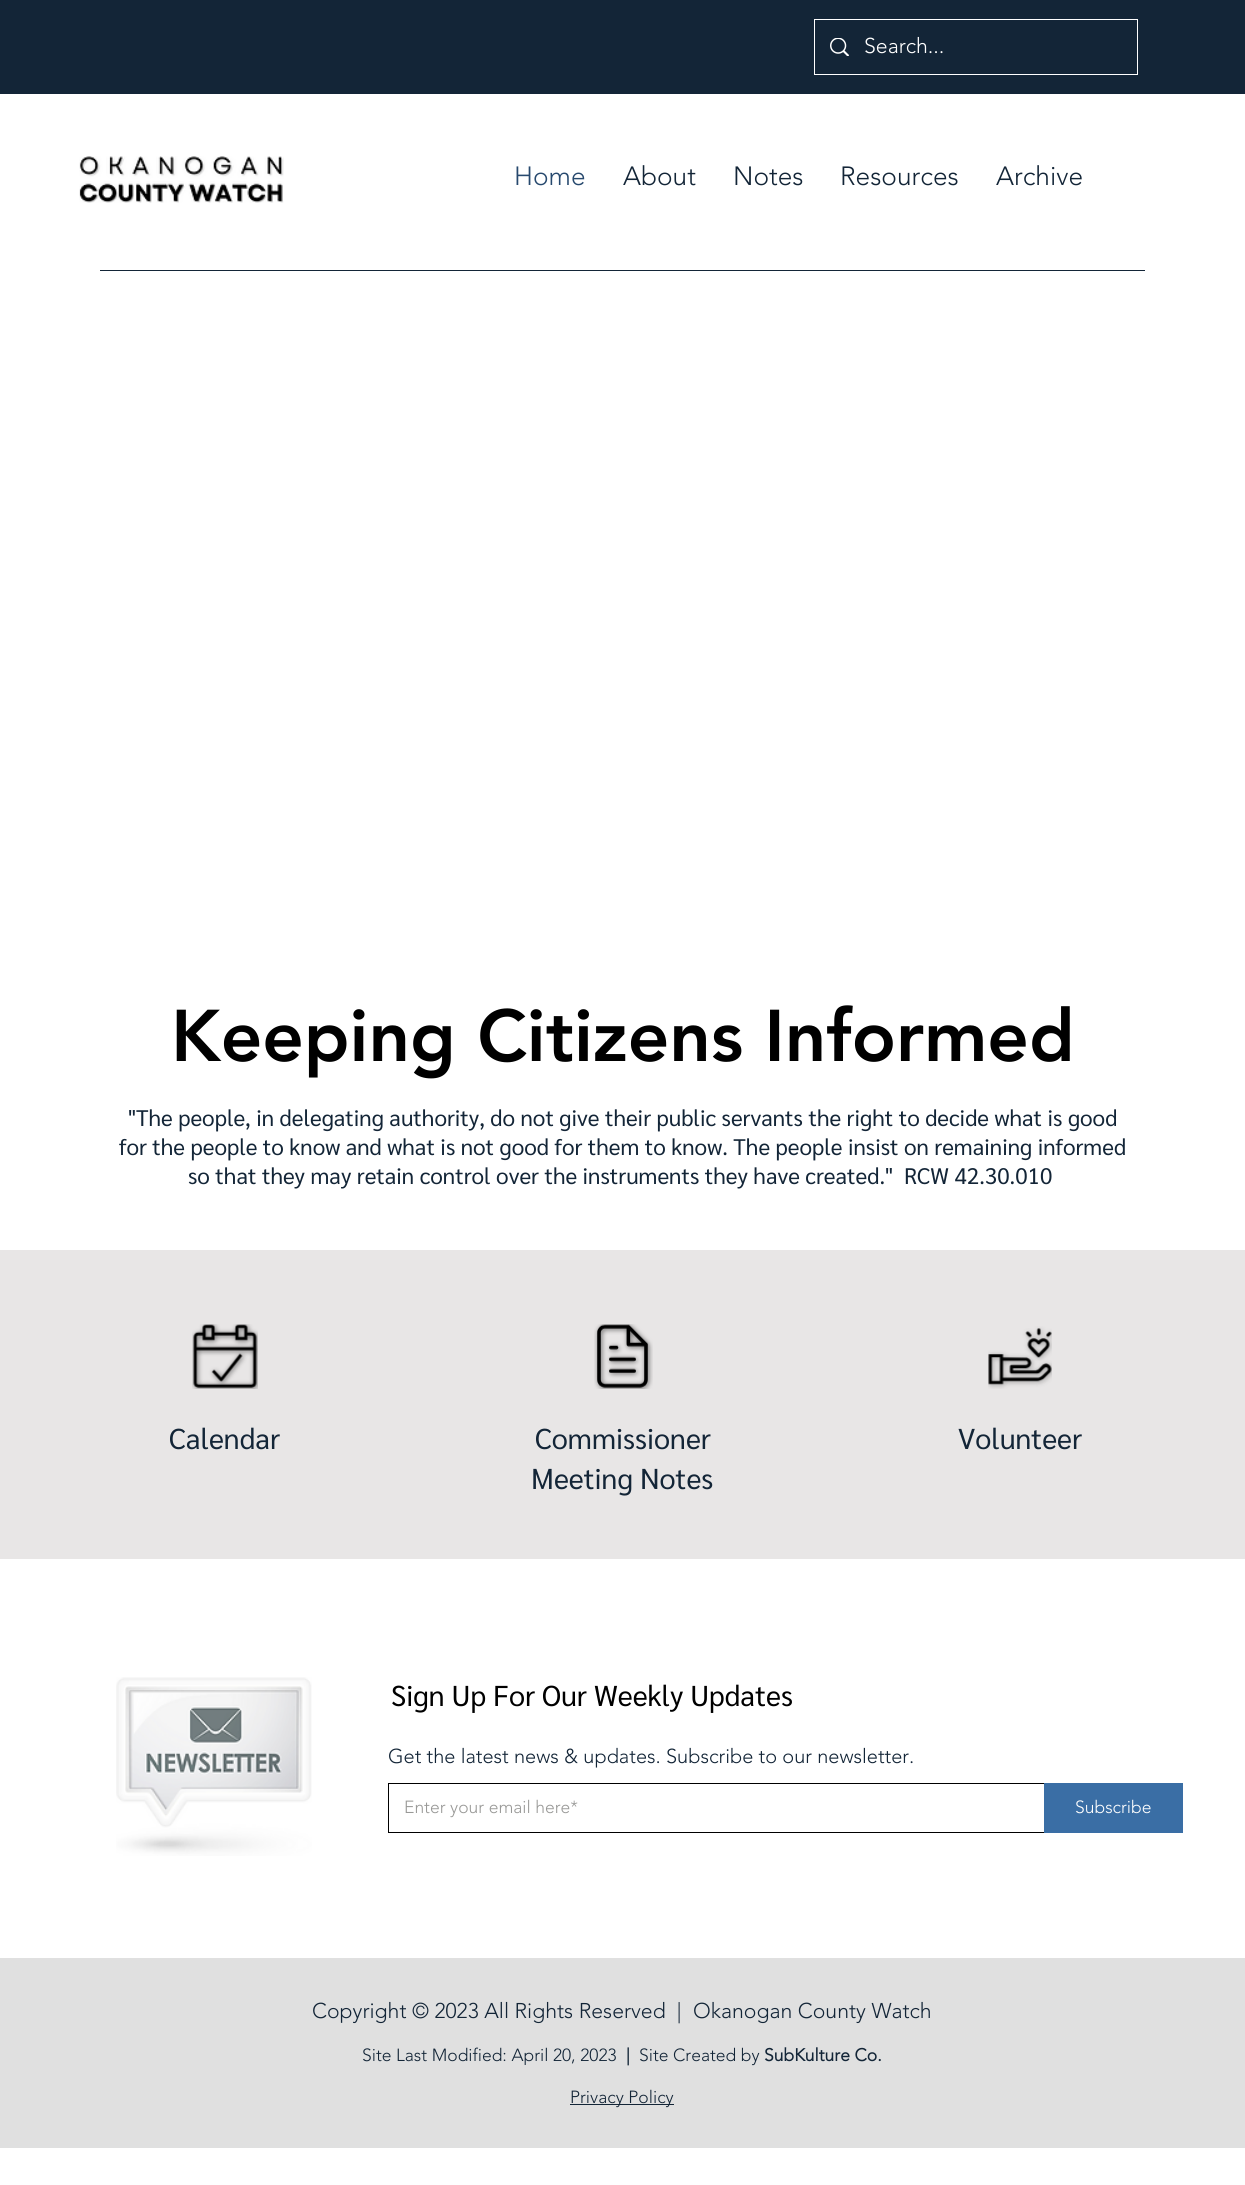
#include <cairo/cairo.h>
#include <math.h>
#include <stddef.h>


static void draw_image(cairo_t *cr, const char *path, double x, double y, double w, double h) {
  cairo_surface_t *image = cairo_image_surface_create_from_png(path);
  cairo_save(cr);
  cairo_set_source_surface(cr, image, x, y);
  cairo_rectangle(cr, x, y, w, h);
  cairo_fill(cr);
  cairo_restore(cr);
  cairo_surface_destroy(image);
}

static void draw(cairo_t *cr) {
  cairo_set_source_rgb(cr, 1, 1, 1);
  cairo_paint(cr);
  cairo_set_source_rgb(cr, 19 / 255.0, 37 / 255.0, 55 / 255.0);
  cairo_rectangle(cr, 0, 0, 1245, 94);
  cairo_fill(cr);
  cairo_rectangle(cr, 814.5, 19.5, 323, 55);
  cairo_set_source_rgb(cr, 1, 1, 1);
  cairo_set_line_width(cr, 1);
  cairo_stroke(cr);
  draw_image(cr, "images/1.png", 830, 38, 19, 18);
  draw_image(cr, "images/2.png", 79, 156, 205, 47);
  cairo_set_source_rgb(cr, 19 / 255.0, 37 / 255.0, 55 / 255.0);
  cairo_rectangle(cr, 100, 270, 1045, 1);
  cairo_fill(cr);
  cairo_set_source_rgb(cr, 232 / 255.0, 230 / 255.0, 230 / 255.0);
  cairo_rectangle(cr, 0, 1250, 1245, 309);
  cairo_fill(cr);
  draw_image(cr, "images/3.png", 192, 1324, 66, 65);
  draw_image(cr, "images/4.png", 594, 1324, 59, 65);
  draw_image(cr, "images/5.png", 988, 1326, 64, 63);
  draw_image(cr, "images/6.png", 116, 1677, 196, 179);
  cairo_rectangle(cr, 388.5, 1783.5, 792, 49);
  cairo_set_source_rgb(cr, 0, 0, 0);
  cairo_stroke(cr);
  cairo_set_source_rgb(cr, 58 / 255.0, 110 / 255.0, 165 / 255.0);
  cairo_rectangle(cr, 1044, 1783, 139, 50);
  cairo_fill(cr);
  cairo_set_source_rgb(cr, 224 / 255.0, 224 / 255.0, 224 / 255.0);
  cairo_rectangle(cr, 0, 1958, 1245, 190);
  cairo_fill(cr);
  cairo_set_source_rgb(cr, 19 / 255.0, 37 / 255.0, 55 / 255.0);
  cairo_rectangle(cr, 570, 2104, 104, 1);
  cairo_fill(cr);
  cairo_select_font_face(cr, "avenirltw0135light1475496 Light", CAIRO_FONT_SLANT_NORMAL, CAIRO_FONT_WEIGHT_NORMAL);
  cairo_set_font_size(cr, 21.25);
  cairo_set_source_rgb(cr, 1, 1, 1);
  cairo_move_to(cr, 864, 53);
  cairo_show_text(cr, "Search...");
  cairo_set_font_size(cr, 26.25);
  cairo_set_source_rgb(cr, 39 / 255.0, 73 / 255.0, 110 / 255.0);
  cairo_move_to(cr, 514, 185);
  cairo_show_text(cr, "Home");
  cairo_set_source_rgb(cr, 19 / 255.0, 37 / 255.0, 55 / 255.0);
  cairo_move_to(cr, 623, 185);
  cairo_show_text(cr, "About");
  cairo_move_to(cr, 733, 185);
  cairo_show_text(cr, "Notes");
  cairo_move_to(cr, 840, 185);
  cairo_show_text(cr, "Resources");
  cairo_move_to(cr, 996, 185);
  cairo_show_text(cr, "Archive");
  cairo_select_font_face(cr, "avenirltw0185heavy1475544 Black", CAIRO_FONT_SLANT_NORMAL, CAIRO_FONT_WEIGHT_NORMAL);
  cairo_set_font_size(cr, 72.5);
  cairo_set_source_rgb(cr, 0, 0, 0);
  cairo_move_to(cr, 171, 1061);
  cairo_show_text(cr, "Keeping Citizens Informed");
  cairo_select_font_face(cr, "Sarabun", CAIRO_FONT_SLANT_NORMAL, CAIRO_FONT_WEIGHT_NORMAL);
  cairo_set_font_size(cr, 22.5);
  cairo_set_source_rgb(cr, 19 / 255.0, 37 / 255.0, 55 / 255.0);
  cairo_move_to(cr, 128, 1126);
  cairo_show_text(cr, "\"The people, in delegating authority, do not give their public servants the right to decide what is good");
  cairo_move_to(cr, 119, 1155);
  cairo_show_text(cr, "for the people to know and what is not good for them to know. The people insist on remaining informed");
  cairo_move_to(cr, 188, 1184);
  cairo_show_text(cr, "so that they may retain control over the instruments they have created.\"  RCW 42.30.010");
  cairo_set_font_size(cr, 28.75);
  cairo_move_to(cr, 169, 1449);
  cairo_show_text(cr, "Calendar");
  cairo_move_to(cr, 535, 1449);
  cairo_show_text(cr, "Commissioner");
  cairo_move_to(cr, 531, 1489);
  cairo_show_text(cr, "Meeting Notes");
  cairo_move_to(cr, 958, 1449);
  cairo_show_text(cr, "Volunteer");
  cairo_set_source_rgb(cr, 0, 0, 0);
  cairo_move_to(cr, 391, 1706);
  cairo_show_text(cr, "Sign Up For Our Weekly Updates");
  cairo_select_font_face(cr, "avenirltw0135light1475496 Light", CAIRO_FONT_SLANT_NORMAL, CAIRO_FONT_WEIGHT_NORMAL);
  cairo_set_font_size(cr, 20);
  cairo_set_source_rgb(cr, 19 / 255.0, 37 / 255.0, 55 / 255.0);
  cairo_move_to(cr, 388, 1763);
  cairo_show_text(cr, "Get the latest news & updates. Subscribe to our newsletter.");
  cairo_set_font_size(cr, 17.5);
  cairo_set_source_rgb(cr, 153 / 255.0, 153 / 255.0, 151 / 255.0);
  cairo_move_to(cr, 404, 1813);
  cairo_show_text(cr, "Enter your email here*");
  cairo_set_source_rgb(cr, 1, 1, 1);
  cairo_move_to(cr, 1075, 1813);
  cairo_show_text(cr, "Subscribe");
  cairo_set_font_size(cr, 21.25);
  cairo_set_source_rgb(cr, 19 / 255.0, 37 / 255.0, 55 / 255.0);
  cairo_move_to(cr, 312, 2018);
  cairo_show_text(cr, "Copyright © 2023 All Rights Reserved  |");
  cairo_move_to(cr, 693, 2018);
  cairo_show_text(cr, "Okanogan County Watch");
  cairo_set_font_size(cr, 17.5);
  cairo_move_to(cr, 362, 2061);
  cairo_show_text(cr, "Site Last Modified: April 20, 2023");
  cairo_select_font_face(cr, "avenirltw0135light1475496", CAIRO_FONT_SLANT_NORMAL, CAIRO_FONT_WEIGHT_BOLD);
  cairo_move_to(cr, 626, 2061);
  cairo_show_text(cr, "|");
  cairo_select_font_face(cr, "avenirltw0135light1475496 Light", CAIRO_FONT_SLANT_NORMAL, CAIRO_FONT_WEIGHT_NORMAL);
  cairo_move_to(cr, 639, 2061);
  cairo_show_text(cr, "Site Created by");
  cairo_select_font_face(cr, "avenirltw0135light1475496", CAIRO_FONT_SLANT_NORMAL, CAIRO_FONT_WEIGHT_BOLD);
  cairo_move_to(cr, 764, 2061);
  cairo_show_text(cr, "SubKulture Co.");
  cairo_select_font_face(cr, "avenirltw0135light1475496 Light", CAIRO_FONT_SLANT_NORMAL, CAIRO_FONT_WEIGHT_NORMAL);
  cairo_move_to(cr, 570, 2103);
  cairo_show_text(cr, "Privacy Policy");
}

int main(void) {
  cairo_surface_t *surface = cairo_image_surface_create(CAIRO_FORMAT_RGB24, 1245, 2185);
  cairo_t *cr = cairo_create(surface);
  cairo_font_options_t *options = cairo_font_options_create();
  cairo_font_options_set_hint_metrics(options, CAIRO_HINT_METRICS_OFF);
  cairo_font_options_set_hint_style(options, CAIRO_HINT_STYLE_NONE);
  cairo_set_font_options(cr, options);
  cairo_set_miter_limit(cr, 4);
  draw(cr);
  cairo_surface_write_to_png(surface, "out.png");
  cairo_font_options_destroy(options);
  cairo_destroy(cr);
  cairo_surface_destroy(surface);
  return 0;
}
